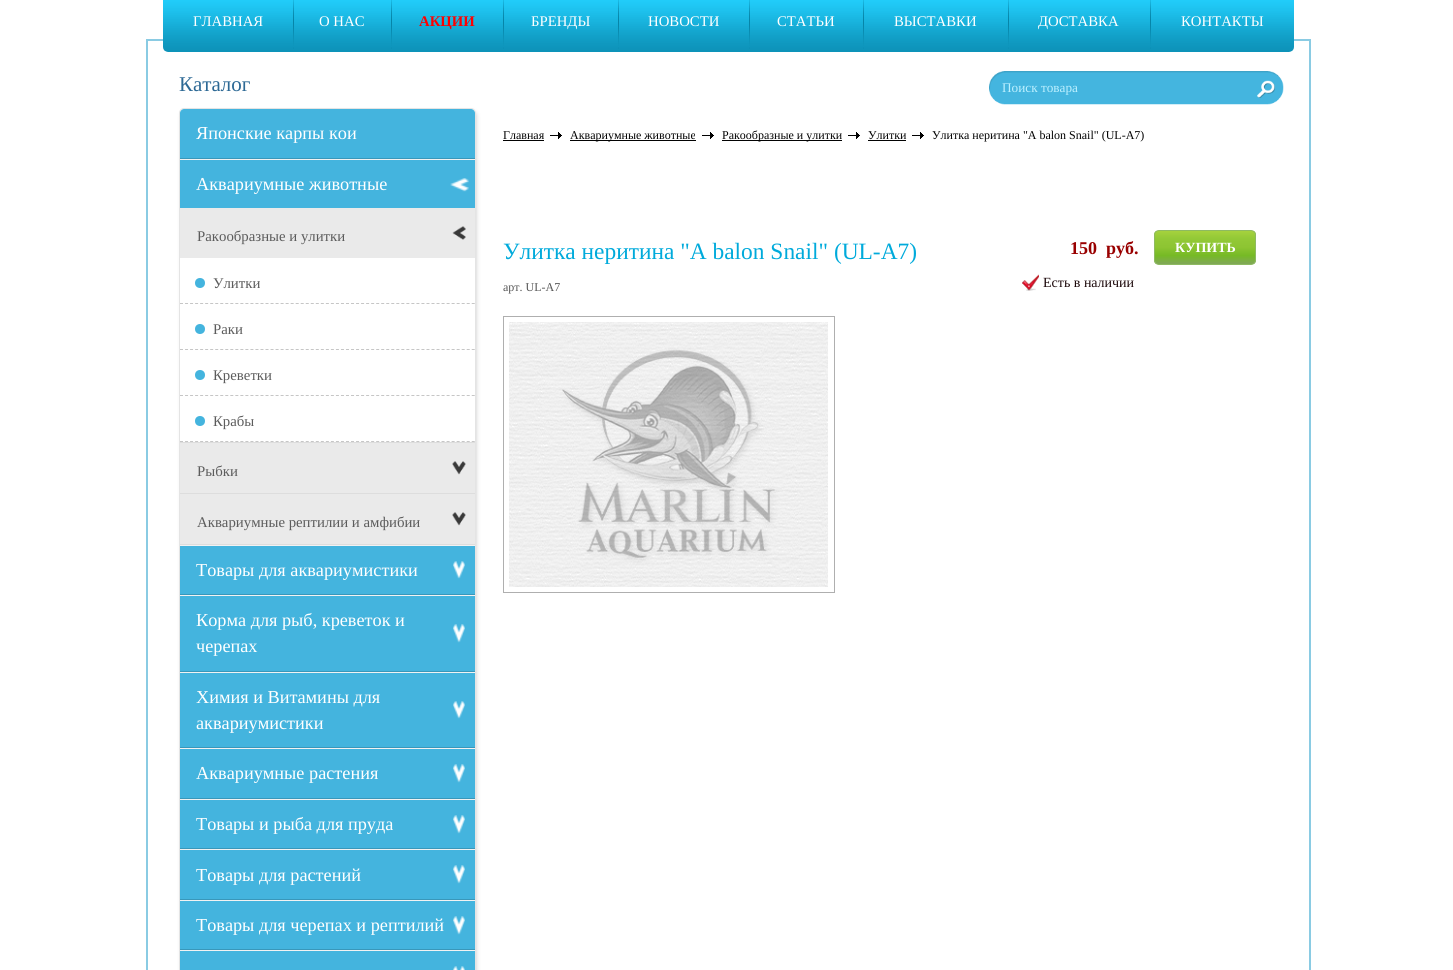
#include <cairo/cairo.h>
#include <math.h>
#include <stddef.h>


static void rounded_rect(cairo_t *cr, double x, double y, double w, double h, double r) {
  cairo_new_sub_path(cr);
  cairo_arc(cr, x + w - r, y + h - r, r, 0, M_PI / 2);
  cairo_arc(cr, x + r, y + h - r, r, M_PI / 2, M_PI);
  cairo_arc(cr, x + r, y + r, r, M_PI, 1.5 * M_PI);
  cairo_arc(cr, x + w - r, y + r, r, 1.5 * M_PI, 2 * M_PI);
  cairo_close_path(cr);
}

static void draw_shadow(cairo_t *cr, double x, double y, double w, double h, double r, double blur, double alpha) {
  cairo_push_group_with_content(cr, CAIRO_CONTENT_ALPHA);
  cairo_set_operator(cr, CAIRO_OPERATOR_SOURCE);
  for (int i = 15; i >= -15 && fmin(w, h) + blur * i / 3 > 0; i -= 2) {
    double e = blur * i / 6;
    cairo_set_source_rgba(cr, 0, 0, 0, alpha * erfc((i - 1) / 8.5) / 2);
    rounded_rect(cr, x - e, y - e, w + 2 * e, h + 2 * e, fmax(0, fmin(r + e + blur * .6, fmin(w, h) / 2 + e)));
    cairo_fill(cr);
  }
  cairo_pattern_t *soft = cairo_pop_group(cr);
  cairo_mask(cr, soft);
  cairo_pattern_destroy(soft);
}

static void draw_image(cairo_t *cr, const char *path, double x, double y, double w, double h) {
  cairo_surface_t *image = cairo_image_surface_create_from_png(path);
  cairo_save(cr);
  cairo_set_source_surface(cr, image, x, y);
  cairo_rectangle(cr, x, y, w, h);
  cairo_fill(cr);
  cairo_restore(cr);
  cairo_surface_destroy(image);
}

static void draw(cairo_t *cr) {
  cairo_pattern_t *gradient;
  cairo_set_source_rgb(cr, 1, 1, 1);
  cairo_paint(cr);
  cairo_rectangle(cr, 147, 40, 1163, 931);
  cairo_set_source_rgb(cr, 138 / 255.0, 203 / 255.0, 227 / 255.0);
  cairo_stroke(cr);
  draw_image(cr, "images/1.png", 163, 0, 1131, 52);
  draw_image(cr, "images/2.png", 293, 0, 1, 49);
  draw_image(cr, "images/2.png", 391, 0, 1, 49);
  draw_image(cr, "images/2.png", 503, 0, 1, 49);
  draw_image(cr, "images/2.png", 618, 0, 1, 49);
  draw_image(cr, "images/2.png", 749, 0, 1, 49);
  draw_image(cr, "images/2.png", 863, 0, 1, 49);
  draw_image(cr, "images/2.png", 1008, 0, 1, 49);
  draw_image(cr, "images/2.png", 1150, 0, 1, 49);
  draw_image(cr, "images/3.png", 989, 71, 295, 34);
  cairo_save(cr);
  cairo_set_fill_rule(cr, CAIRO_FILL_RULE_EVEN_ODD);
  cairo_new_path(cr);
  cairo_move_to(cr, 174, 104);
  cairo_line_to(cr, 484, 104);
  cairo_line_to(cr, 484, 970);
  cairo_line_to(cr, 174, 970);
  cairo_close_path(cr);
  cairo_move_to(cr, 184, 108);
  cairo_line_to(cr, 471, 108);
  cairo_curve_to(cr, 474, 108, 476, 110, 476, 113);
  cairo_line_to(cr, 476, 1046);
  cairo_curve_to(cr, 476, 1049, 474, 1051, 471, 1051);
  cairo_line_to(cr, 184, 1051);
  cairo_curve_to(cr, 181, 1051, 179, 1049, 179, 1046);
  cairo_line_to(cr, 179, 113);
  cairo_curve_to(cr, 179, 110, 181, 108, 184, 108);
  cairo_close_path(cr);
  cairo_clip(cr);
  cairo_set_source_rgb(cr, 136 / 255.0, 136 / 255.0, 136 / 255.0);
  draw_shadow(cr, 184, 114, 290, 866, 1, 3, 1);
  cairo_restore(cr);
  rounded_rect(cr, 179.5, 108.5, 296, 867, 4.5);
  cairo_set_source_rgb(cr, 228 / 255.0, 228 / 255.0, 228 / 255.0);
  cairo_set_line_width(cr, 1);
  cairo_stroke(cr);
  cairo_set_source_rgb(cr, 57 / 255.0, 151 / 255.0, 186 / 255.0);
  cairo_rectangle(cr, 180, 158, 295, 1);
  cairo_fill(cr);
  cairo_set_source_rgb(cr, 68 / 255.0, 180 / 255.0, 222 / 255.0);
  cairo_new_path(cr);
  cairo_move_to(cr, 184, 109);
  cairo_line_to(cr, 471, 109);
  cairo_curve_to(cr, 473, 109, 475, 111, 475, 113);
  cairo_line_to(cr, 475, 158);
  cairo_line_to(cr, 180, 158);
  cairo_line_to(cr, 180, 113);
  cairo_curve_to(cr, 180, 111, 182, 109, 184, 109);
  cairo_close_path(cr);
  cairo_fill(cr);
  cairo_set_source_rgb(cr, 242 / 255.0, 242 / 255.0, 242 / 255.0);
  cairo_rectangle(cr, 180, 159, 295, 1);
  cairo_fill(cr);
  cairo_set_source_rgb(cr, 68 / 255.0, 180 / 255.0, 222 / 255.0);
  cairo_rectangle(cr, 180, 160, 295, 48);
  cairo_fill(cr);
  draw_image(cr, "images/4.png", 450, 178, 19, 14);
  cairo_set_source_rgb(cr, 221 / 255.0, 221 / 255.0, 221 / 255.0);
  cairo_rectangle(cr, 180, 442, 295, 1);
  cairo_fill(cr);
  cairo_set_source_rgb(cr, 234 / 255.0, 234 / 255.0, 234 / 255.0);
  cairo_rectangle(cr, 180, 208, 295, 50);
  cairo_fill(cr);
  draw_image(cr, "images/5.png", 452, 226, 14, 14);
  cairo_new_path(cr);
  cairo_move_to(cr, 180, 303.5);
  cairo_line_to(cr, 475, 303.5);
  cairo_set_source_rgb(cr, 198 / 255.0, 198 / 255.0, 198 / 255.0);
  cairo_set_dash(cr, (double[]){3, 2.03}, 2, 0);
  cairo_stroke(cr);
  cairo_set_source_rgb(cr, 68 / 255.0, 180 / 255.0, 222 / 255.0);
  cairo_arc(cr, 200, 283, 5, 0, 2 * M_PI);
  cairo_fill(cr);
  cairo_new_path(cr);
  cairo_move_to(cr, 180, 349.5);
  cairo_line_to(cr, 475, 349.5);
  cairo_set_source_rgb(cr, 198 / 255.0, 198 / 255.0, 198 / 255.0);
  cairo_stroke(cr);
  cairo_set_source_rgb(cr, 68 / 255.0, 180 / 255.0, 222 / 255.0);
  cairo_arc(cr, 200, 329, 5, 0, 2 * M_PI);
  cairo_fill(cr);
  cairo_new_path(cr);
  cairo_move_to(cr, 180, 395.5);
  cairo_line_to(cr, 475, 395.5);
  cairo_set_source_rgb(cr, 198 / 255.0, 198 / 255.0, 198 / 255.0);
  cairo_stroke(cr);
  cairo_set_source_rgb(cr, 68 / 255.0, 180 / 255.0, 222 / 255.0);
  cairo_arc(cr, 200, 375, 5, 0, 2 * M_PI);
  cairo_fill(cr);
  cairo_new_path(cr);
  cairo_move_to(cr, 180, 441.5);
  cairo_line_to(cr, 475, 441.5);
  cairo_set_source_rgb(cr, 198 / 255.0, 198 / 255.0, 198 / 255.0);
  cairo_stroke(cr);
  cairo_set_source_rgb(cr, 68 / 255.0, 180 / 255.0, 222 / 255.0);
  cairo_arc(cr, 200, 421, 5, 0, 2 * M_PI);
  cairo_fill(cr);
  cairo_set_source_rgb(cr, 221 / 255.0, 221 / 255.0, 221 / 255.0);
  cairo_rectangle(cr, 180, 493, 295, 1);
  cairo_fill(cr);
  cairo_set_source_rgb(cr, 234 / 255.0, 234 / 255.0, 234 / 255.0);
  cairo_rectangle(cr, 180, 443, 295, 50);
  cairo_fill(cr);
  draw_image(cr, "images/6.png", 452, 461, 14, 14);
  cairo_set_source_rgb(cr, 221 / 255.0, 221 / 255.0, 221 / 255.0);
  cairo_rectangle(cr, 180, 544, 295, 1);
  cairo_fill(cr);
  cairo_set_source_rgb(cr, 234 / 255.0, 234 / 255.0, 234 / 255.0);
  cairo_rectangle(cr, 180, 494, 295, 50);
  cairo_fill(cr);
  draw_image(cr, "images/6.png", 452, 512, 14, 14);
  cairo_set_source_rgb(cr, 242 / 255.0, 242 / 255.0, 242 / 255.0);
  cairo_rectangle(cr, 180, 545, 295, 1);
  cairo_fill(cr);
  cairo_set_source_rgb(cr, 57 / 255.0, 151 / 255.0, 186 / 255.0);
  cairo_rectangle(cr, 180, 594, 295, 1);
  cairo_fill(cr);
  cairo_set_source_rgb(cr, 68 / 255.0, 180 / 255.0, 222 / 255.0);
  cairo_rectangle(cr, 180, 546, 295, 48);
  cairo_fill(cr);
  draw_image(cr, "images/7.png", 453, 561, 12, 18);
  cairo_set_source_rgb(cr, 242 / 255.0, 242 / 255.0, 242 / 255.0);
  cairo_rectangle(cr, 180, 595, 295, 1);
  cairo_fill(cr);
  cairo_set_source_rgb(cr, 57 / 255.0, 151 / 255.0, 186 / 255.0);
  cairo_rectangle(cr, 180, 671, 295, 1);
  cairo_fill(cr);
  cairo_set_source_rgb(cr, 68 / 255.0, 180 / 255.0, 222 / 255.0);
  cairo_rectangle(cr, 180, 596, 295, 75);
  cairo_fill(cr);
  draw_image(cr, "images/8.png", 453, 624, 12, 19);
  cairo_set_source_rgb(cr, 242 / 255.0, 242 / 255.0, 242 / 255.0);
  cairo_rectangle(cr, 180, 672, 295, 1);
  cairo_fill(cr);
  cairo_set_source_rgb(cr, 57 / 255.0, 151 / 255.0, 186 / 255.0);
  cairo_rectangle(cr, 180, 747, 295, 1);
  cairo_fill(cr);
  cairo_set_source_rgb(cr, 68 / 255.0, 180 / 255.0, 222 / 255.0);
  cairo_rectangle(cr, 180, 673, 295, 74);
  cairo_fill(cr);
  draw_image(cr, "images/9.png", 453, 701, 12, 18);
  cairo_set_source_rgb(cr, 242 / 255.0, 242 / 255.0, 242 / 255.0);
  cairo_rectangle(cr, 180, 748, 295, 1);
  cairo_fill(cr);
  cairo_set_source_rgb(cr, 57 / 255.0, 151 / 255.0, 186 / 255.0);
  cairo_rectangle(cr, 180, 798, 295, 1);
  cairo_fill(cr);
  cairo_set_source_rgb(cr, 68 / 255.0, 180 / 255.0, 222 / 255.0);
  cairo_rectangle(cr, 180, 749, 295, 49);
  cairo_fill(cr);
  draw_image(cr, "images/8.png", 453, 764, 12, 19);
  cairo_set_source_rgb(cr, 242 / 255.0, 242 / 255.0, 242 / 255.0);
  cairo_rectangle(cr, 180, 799, 295, 1);
  cairo_fill(cr);
  cairo_set_source_rgb(cr, 57 / 255.0, 151 / 255.0, 186 / 255.0);
  cairo_rectangle(cr, 180, 848, 295, 1);
  cairo_fill(cr);
  cairo_set_source_rgb(cr, 68 / 255.0, 180 / 255.0, 222 / 255.0);
  cairo_rectangle(cr, 180, 800, 295, 48);
  cairo_fill(cr);
  draw_image(cr, "images/8.png", 453, 815, 12, 19);
  cairo_set_source_rgb(cr, 242 / 255.0, 242 / 255.0, 242 / 255.0);
  cairo_rectangle(cr, 180, 849, 295, 1);
  cairo_fill(cr);
  cairo_set_source_rgb(cr, 57 / 255.0, 151 / 255.0, 186 / 255.0);
  cairo_rectangle(cr, 180, 899, 295, 1);
  cairo_fill(cr);
  cairo_set_source_rgb(cr, 68 / 255.0, 180 / 255.0, 222 / 255.0);
  cairo_rectangle(cr, 180, 850, 295, 49);
  cairo_fill(cr);
  draw_image(cr, "images/8.png", 453, 865, 12, 19);
  cairo_set_source_rgb(cr, 242 / 255.0, 242 / 255.0, 242 / 255.0);
  cairo_rectangle(cr, 180, 900, 295, 1);
  cairo_fill(cr);
  cairo_set_source_rgb(cr, 57 / 255.0, 151 / 255.0, 186 / 255.0);
  cairo_rectangle(cr, 180, 949, 295, 1);
  cairo_fill(cr);
  cairo_set_source_rgb(cr, 68 / 255.0, 180 / 255.0, 222 / 255.0);
  cairo_rectangle(cr, 180, 901, 295, 48);
  cairo_fill(cr);
  draw_image(cr, "images/8.png", 453, 916, 12, 19);
  cairo_set_source_rgb(cr, 242 / 255.0, 242 / 255.0, 242 / 255.0);
  cairo_rectangle(cr, 180, 950, 295, 1);
  cairo_fill(cr);
  cairo_set_source_rgb(cr, 68 / 255.0, 180 / 255.0, 222 / 255.0);
  cairo_rectangle(cr, 180, 951, 295, 19);
  cairo_fill(cr);
  draw_image(cr, "images/10.png", 453, 966, 12, 4);
  draw_image(cr, "images/11.png", 550, 132, 12, 7);
  cairo_set_source_rgb(cr, 2 / 255.0, 2 / 255.0, 2 / 255.0);
  cairo_rectangle(cr, 503, 140, 41, 1);
  cairo_fill(cr);
  draw_image(cr, "images/11.png", 702, 132, 12, 7);
  cairo_rectangle(cr, 570, 140, 126, 1);
  cairo_fill(cr);
  draw_image(cr, "images/11.png", 848, 132, 12, 7);
  cairo_rectangle(cr, 722, 140, 120, 1);
  cairo_fill(cr);
  draw_image(cr, "images/11.png", 912, 132, 12, 7);
  cairo_rectangle(cr, 868, 140, 38, 1);
  cairo_fill(cr);
  cairo_save(cr);
  rounded_rect(cr, 1154, 230, 102, 35, 5);
  cairo_clip(cr);
  gradient = cairo_pattern_create_linear(1205, 231, 1205, 264);
  cairo_pattern_add_color_stop_rgba(gradient, 0, 166 / 255.0, 210 / 255.0, 61 / 255.0, 1);
  cairo_pattern_add_color_stop_rgba(gradient, 0.22, 147 / 255.0, 201 / 255.0, 55 / 255.0, 1);
  cairo_pattern_add_color_stop_rgba(gradient, 0.5, 141 / 255.0, 196 / 255.0, 50 / 255.0, 1);
  cairo_pattern_add_color_stop_rgba(gradient, 0.74, 118 / 255.0, 186 / 255.0, 37 / 255.0, 1);
  cairo_pattern_add_color_stop_rgba(gradient, 1, 128 / 255.0, 167 / 255.0, 88 / 255.0, 1);
  cairo_set_source(cr, gradient);
  cairo_pattern_destroy(gradient);
  cairo_rectangle(cr, 1154, 231, 102, 33);
  cairo_fill(cr);
  cairo_restore(cr);
  rounded_rect(cr, 1154.5, 230.5, 101, 34, 4.5);
  cairo_set_source_rgb(cr, 142 / 255.0, 186 / 255.0, 97 / 255.0);
  cairo_set_dash(cr, NULL, 0, 0);
  cairo_stroke(cr);
  draw_image(cr, "images/12.png", 1022, 274, 17, 17);
  cairo_rectangle(cr, 503.5, 316.5, 331, 276);
  cairo_set_source_rgb(cr, 175 / 255.0, 175 / 255.0, 175 / 255.0);
  cairo_stroke(cr);
  draw_image(cr, "images/13.png", 509, 322, 319, 265);
  cairo_select_font_face(cr, "Liberation Serif", CAIRO_FONT_SLANT_NORMAL, CAIRO_FONT_WEIGHT_NORMAL);
  cairo_set_font_size(cr, 14.75);
  cairo_set_source_rgb(cr, 1, 1, 1);
  cairo_move_to(cr, 193, 26);
  cairo_show_text(cr, "ГЛАВНАЯ");
  cairo_move_to(cr, 319, 26);
  cairo_show_text(cr, "О НАС");
  cairo_select_font_face(cr, "Liberation Serif", CAIRO_FONT_SLANT_NORMAL, CAIRO_FONT_WEIGHT_BOLD);
  cairo_set_source_rgb(cr, 1, 0, 0);
  cairo_move_to(cr, 419, 26);
  cairo_show_text(cr, "АКЦИИ");
  cairo_select_font_face(cr, "Liberation Serif", CAIRO_FONT_SLANT_NORMAL, CAIRO_FONT_WEIGHT_NORMAL);
  cairo_set_source_rgb(cr, 1, 1, 1);
  cairo_move_to(cr, 531, 26);
  cairo_show_text(cr, "БРЕНДЫ");
  cairo_move_to(cr, 648, 26);
  cairo_show_text(cr, "НОВОСТИ");
  cairo_move_to(cr, 777, 26);
  cairo_show_text(cr, "СТАТЬИ");
  cairo_move_to(cr, 894, 26);
  cairo_show_text(cr, "ВЫСТАВКИ");
  cairo_move_to(cr, 1038, 26);
  cairo_show_text(cr, "ДОСТАВКА");
  cairo_move_to(cr, 1181, 26);
  cairo_show_text(cr, "КОНТАКТЫ");
  cairo_set_font_size(cr, 13.25);
  cairo_set_source_rgb(cr, 189 / 255.0, 240 / 255.0, 1);
  cairo_move_to(cr, 1002, 92);
  cairo_show_text(cr, "Поиск товара");
  cairo_set_font_size(cr, 21);
  cairo_set_source_rgb(cr, 45 / 255.0, 105 / 255.0, 149 / 255.0);
  cairo_move_to(cr, 179, 91);
  cairo_show_text(cr, "Каталог");
  cairo_set_font_size(cr, 18.25);
  cairo_set_source_rgb(cr, 1, 1, 1);
  cairo_move_to(cr, 196, 139);
  cairo_show_text(cr, "Японские карпы кои");
  cairo_move_to(cr, 196, 190);
  cairo_show_text(cr, "Аквариумные животные");
  cairo_set_font_size(cr, 14.8);
  cairo_set_source_rgb(cr, 92 / 255.0, 92 / 255.0, 92 / 255.0);
  cairo_move_to(cr, 197, 241);
  cairo_show_text(cr, "Ракообразные и улитки");
  cairo_move_to(cr, 213, 288);
  cairo_show_text(cr, "Улитки");
  cairo_move_to(cr, 213, 334);
  cairo_show_text(cr, "Раки");
  cairo_move_to(cr, 213, 380);
  cairo_show_text(cr, "Креветки");
  cairo_move_to(cr, 213, 426);
  cairo_show_text(cr, "Крабы");
  cairo_move_to(cr, 197, 476);
  cairo_show_text(cr, "Рыбки");
  cairo_move_to(cr, 197, 527);
  cairo_show_text(cr, "Аквариумные рептилии и амфибии");
  cairo_set_font_size(cr, 18.25);
  cairo_set_source_rgb(cr, 1, 1, 1);
  cairo_move_to(cr, 196, 576);
  cairo_show_text(cr, "Товары для аквариумистики");
  cairo_move_to(cr, 196, 626);
  cairo_show_text(cr, "Корма для рыб, креветок и");
  cairo_move_to(cr, 196, 652);
  cairo_show_text(cr, "черепах");
  cairo_move_to(cr, 196, 703);
  cairo_show_text(cr, "Химия и Витамины для");
  cairo_move_to(cr, 196, 729);
  cairo_show_text(cr, "аквариумистики");
  cairo_move_to(cr, 196, 779);
  cairo_show_text(cr, "Аквариумные растения");
  cairo_move_to(cr, 196, 830);
  cairo_show_text(cr, "Товары и рыба для пруда");
  cairo_move_to(cr, 196, 881);
  cairo_show_text(cr, "Товары для растений");
  cairo_move_to(cr, 196, 931);
  cairo_show_text(cr, "Товары для черепах и рептилий");
  cairo_set_font_size(cr, 12);
  cairo_set_source_rgb(cr, 2 / 255.0, 2 / 255.0, 2 / 255.0);
  cairo_move_to(cr, 503, 139);
  cairo_show_text(cr, "Главная");
  cairo_move_to(cr, 570, 139);
  cairo_show_text(cr, "Аквариумные животные");
  cairo_move_to(cr, 722, 139);
  cairo_show_text(cr, "Ракообразные и улитки");
  cairo_move_to(cr, 868, 139);
  cairo_show_text(cr, "Улитки");
  cairo_move_to(cr, 932, 139);
  cairo_show_text(cr, "Улитка неритина \"A balon Snail\" (UL-A7)");
  cairo_set_font_size(cr, 23.4);
  cairo_set_source_rgb(cr, 0, 170 / 255.0, 219 / 255.0);
  cairo_move_to(cr, 503, 259);
  cairo_show_text(cr, "Улитка неритина \"A balon Snail\" (UL-A7)");
  cairo_set_font_size(cr, 12);
  cairo_set_source_rgb(cr, 86 / 255.0, 86 / 255.0, 86 / 255.0);
  cairo_move_to(cr, 503, 291);
  cairo_show_text(cr, "арт. UL-A7");
  cairo_select_font_face(cr, "Liberation Serif", CAIRO_FONT_SLANT_NORMAL, CAIRO_FONT_WEIGHT_BOLD);
  cairo_set_font_size(cr, 18);
  cairo_set_source_rgb(cr, 153 / 255.0, 0, 0);
  cairo_move_to(cr, 1070, 254);
  cairo_show_text(cr, "150");
  cairo_move_to(cr, 1106, 254);
  cairo_show_text(cr, "руб.");
  cairo_set_font_size(cr, 14);
  cairo_set_source_rgb(cr, 1, 1, 1);
  cairo_move_to(cr, 1175, 252);
  cairo_show_text(cr, "КУПИТЬ");
  cairo_select_font_face(cr, "Liberation Serif", CAIRO_FONT_SLANT_NORMAL, CAIRO_FONT_WEIGHT_NORMAL);
  cairo_set_source_rgb(cr, 28 / 255.0, 8 / 255.0, 10 / 255.0);
  cairo_move_to(cr, 1043, 287);
  cairo_show_text(cr, "Есть в наличии");
}

int main(void) {
  cairo_surface_t *surface = cairo_image_surface_create(CAIRO_FORMAT_RGB24, 1453, 970);
  cairo_t *cr = cairo_create(surface);
  cairo_font_options_t *options = cairo_font_options_create();
  cairo_font_options_set_hint_metrics(options, CAIRO_HINT_METRICS_OFF);
  cairo_font_options_set_hint_style(options, CAIRO_HINT_STYLE_NONE);
  cairo_set_font_options(cr, options);
  cairo_set_miter_limit(cr, 4);
  draw(cr);
  cairo_surface_write_to_png(surface, "out.png");
  cairo_font_options_destroy(options);
  cairo_destroy(cr);
  cairo_surface_destroy(surface);
  return 0;
}
